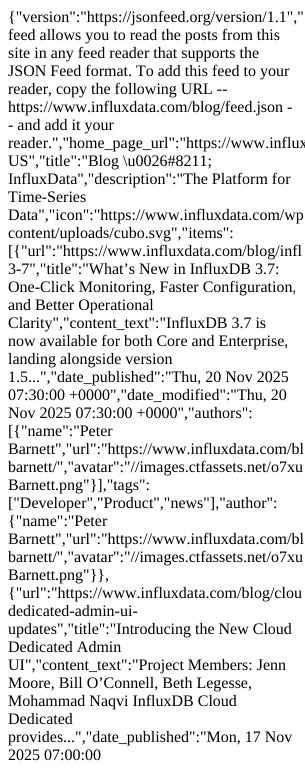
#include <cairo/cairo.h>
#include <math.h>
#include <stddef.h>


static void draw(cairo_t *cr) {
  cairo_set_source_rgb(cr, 1, 1, 1);
  cairo_paint(cr);
  cairo_select_font_face(cr, "Liberation Serif", CAIRO_FONT_SLANT_NORMAL, CAIRO_FONT_WEIGHT_NORMAL);
  cairo_set_font_size(cr, 16);
  cairo_set_source_rgb(cr, 0, 0, 0);
  cairo_move_to(cr, 8, 22);
  cairo_show_text(cr, "{\"version\":\"https://jsonfeed.org/version/1.1\",\"");
  cairo_move_to(cr, 8, 40);
  cairo_show_text(cr, "feed allows you to read the posts from this");
  cairo_move_to(cr, 8, 58);
  cairo_show_text(cr, "site in any feed reader that supports the");
  cairo_move_to(cr, 8, 76);
  cairo_show_text(cr, "JSON Feed format. To add this feed to your");
  cairo_move_to(cr, 8, 94);
  cairo_show_text(cr, "reader, copy the following URL --");
  cairo_move_to(cr, 8, 112);
  cairo_show_text(cr, "https://www.influxdata.com/blog/feed.json -");
  cairo_move_to(cr, 8, 130);
  cairo_show_text(cr, "- and add it your");
  cairo_move_to(cr, 8, 148);
  cairo_show_text(cr, "reader.\",\"home_page_url\":\"https://www.influx");
  cairo_move_to(cr, 8, 166);
  cairo_show_text(cr, "US\",\"title\":\"Blog \\u0026#8211;");
  cairo_move_to(cr, 8, 184);
  cairo_show_text(cr, "InfluxData\",\"description\":\"The Platform for");
  cairo_move_to(cr, 8, 202);
  cairo_show_text(cr, "Time-Series");
  cairo_move_to(cr, 8, 220);
  cairo_show_text(cr, "Data\",\"icon\":\"https://www.influxdata.com/wp");
  cairo_move_to(cr, 8, 238);
  cairo_show_text(cr, "content/uploads/cubo.svg\",\"items\":");
  cairo_move_to(cr, 8, 256);
  cairo_show_text(cr, "[{\"url\":\"https://www.influxdata.com/blog/infl");
  cairo_move_to(cr, 8, 274);
  cairo_show_text(cr, "3-7\",\"title\":\"What’s New in InfluxDB 3.7:");
  cairo_move_to(cr, 8, 292);
  cairo_show_text(cr, "One-Click Monitoring, Faster Configuration,");
  cairo_move_to(cr, 8, 310);
  cairo_show_text(cr, "and Better Operational");
  cairo_move_to(cr, 8, 328);
  cairo_show_text(cr, "Clarity\",\"content_text\":\"InfluxDB 3.7 is");
  cairo_move_to(cr, 8, 346);
  cairo_show_text(cr, "now available for both Core and Enterprise,");
  cairo_move_to(cr, 8, 364);
  cairo_show_text(cr, "landing alongside version");
  cairo_move_to(cr, 8, 382);
  cairo_show_text(cr, "1.5...\",\"date_published\":\"Thu, 20 Nov 2025");
  cairo_move_to(cr, 8, 400);
  cairo_show_text(cr, "07:30:00 +0000\",\"date_modified\":\"Thu, 20");
  cairo_move_to(cr, 8, 418);
  cairo_show_text(cr, "Nov 2025 07:30:00 +0000\",\"authors\":");
  cairo_move_to(cr, 8, 436);
  cairo_show_text(cr, "[{\"name\":\"Peter");
  cairo_move_to(cr, 8, 454);
  cairo_show_text(cr, "Barnett\",\"url\":\"https://www.influxdata.com/bl");
  cairo_move_to(cr, 8, 472);
  cairo_show_text(cr, "barnett/\",\"avatar\":\"//images.ctfassets.net/o7xu");
  cairo_move_to(cr, 8, 490);
  cairo_show_text(cr, "Barnett.png\"}],\"tags\":");
  cairo_move_to(cr, 8, 508);
  cairo_show_text(cr, "[\"Developer\",\"Product\",\"news\"],\"author\":");
  cairo_move_to(cr, 8, 526);
  cairo_show_text(cr, "{\"name\":\"Peter");
  cairo_move_to(cr, 8, 544);
  cairo_show_text(cr, "Barnett\",\"url\":\"https://www.influxdata.com/bl");
  cairo_move_to(cr, 8, 562);
  cairo_show_text(cr, "barnett/\",\"avatar\":\"//images.ctfassets.net/o7xu");
  cairo_move_to(cr, 8, 580);
  cairo_show_text(cr, "Barnett.png\"}},");
  cairo_move_to(cr, 8, 598);
  cairo_show_text(cr, "{\"url\":\"https://www.influxdata.com/blog/clou");
  cairo_move_to(cr, 8, 616);
  cairo_show_text(cr, "dedicated-admin-ui-");
  cairo_move_to(cr, 8, 634);
  cairo_show_text(cr, "updates\",\"title\":\"Introducing the New Cloud");
  cairo_move_to(cr, 8, 652);
  cairo_show_text(cr, "Dedicated Admin");
  cairo_move_to(cr, 8, 670);
  cairo_show_text(cr, "UI\",\"content_text\":\"Project Members: Jenn");
  cairo_move_to(cr, 8, 688);
  cairo_show_text(cr, "Moore, Bill O’Connell, Beth Legesse,");
  cairo_move_to(cr, 8, 706);
  cairo_show_text(cr, "Mohammad Naqvi InfluxDB Cloud");
  cairo_move_to(cr, 8, 724);
  cairo_show_text(cr, "Dedicated");
  cairo_move_to(cr, 8, 742);
  cairo_show_text(cr, "provides...\",\"date_published\":\"Mon, 17 Nov");
  cairo_move_to(cr, 8, 760);
  cairo_show_text(cr, "2025 07:00:00");
}

int main(void) {
  cairo_surface_t *surface = cairo_image_surface_create(CAIRO_FORMAT_RGB24, 305, 769);
  cairo_t *cr = cairo_create(surface);
  cairo_font_options_t *options = cairo_font_options_create();
  cairo_font_options_set_hint_metrics(options, CAIRO_HINT_METRICS_OFF);
  cairo_font_options_set_hint_style(options, CAIRO_HINT_STYLE_NONE);
  cairo_set_font_options(cr, options);
  cairo_set_miter_limit(cr, 4);
  draw(cr);
  cairo_surface_write_to_png(surface, "out.png");
  cairo_font_options_destroy(options);
  cairo_destroy(cr);
  cairo_surface_destroy(surface);
  return 0;
}
